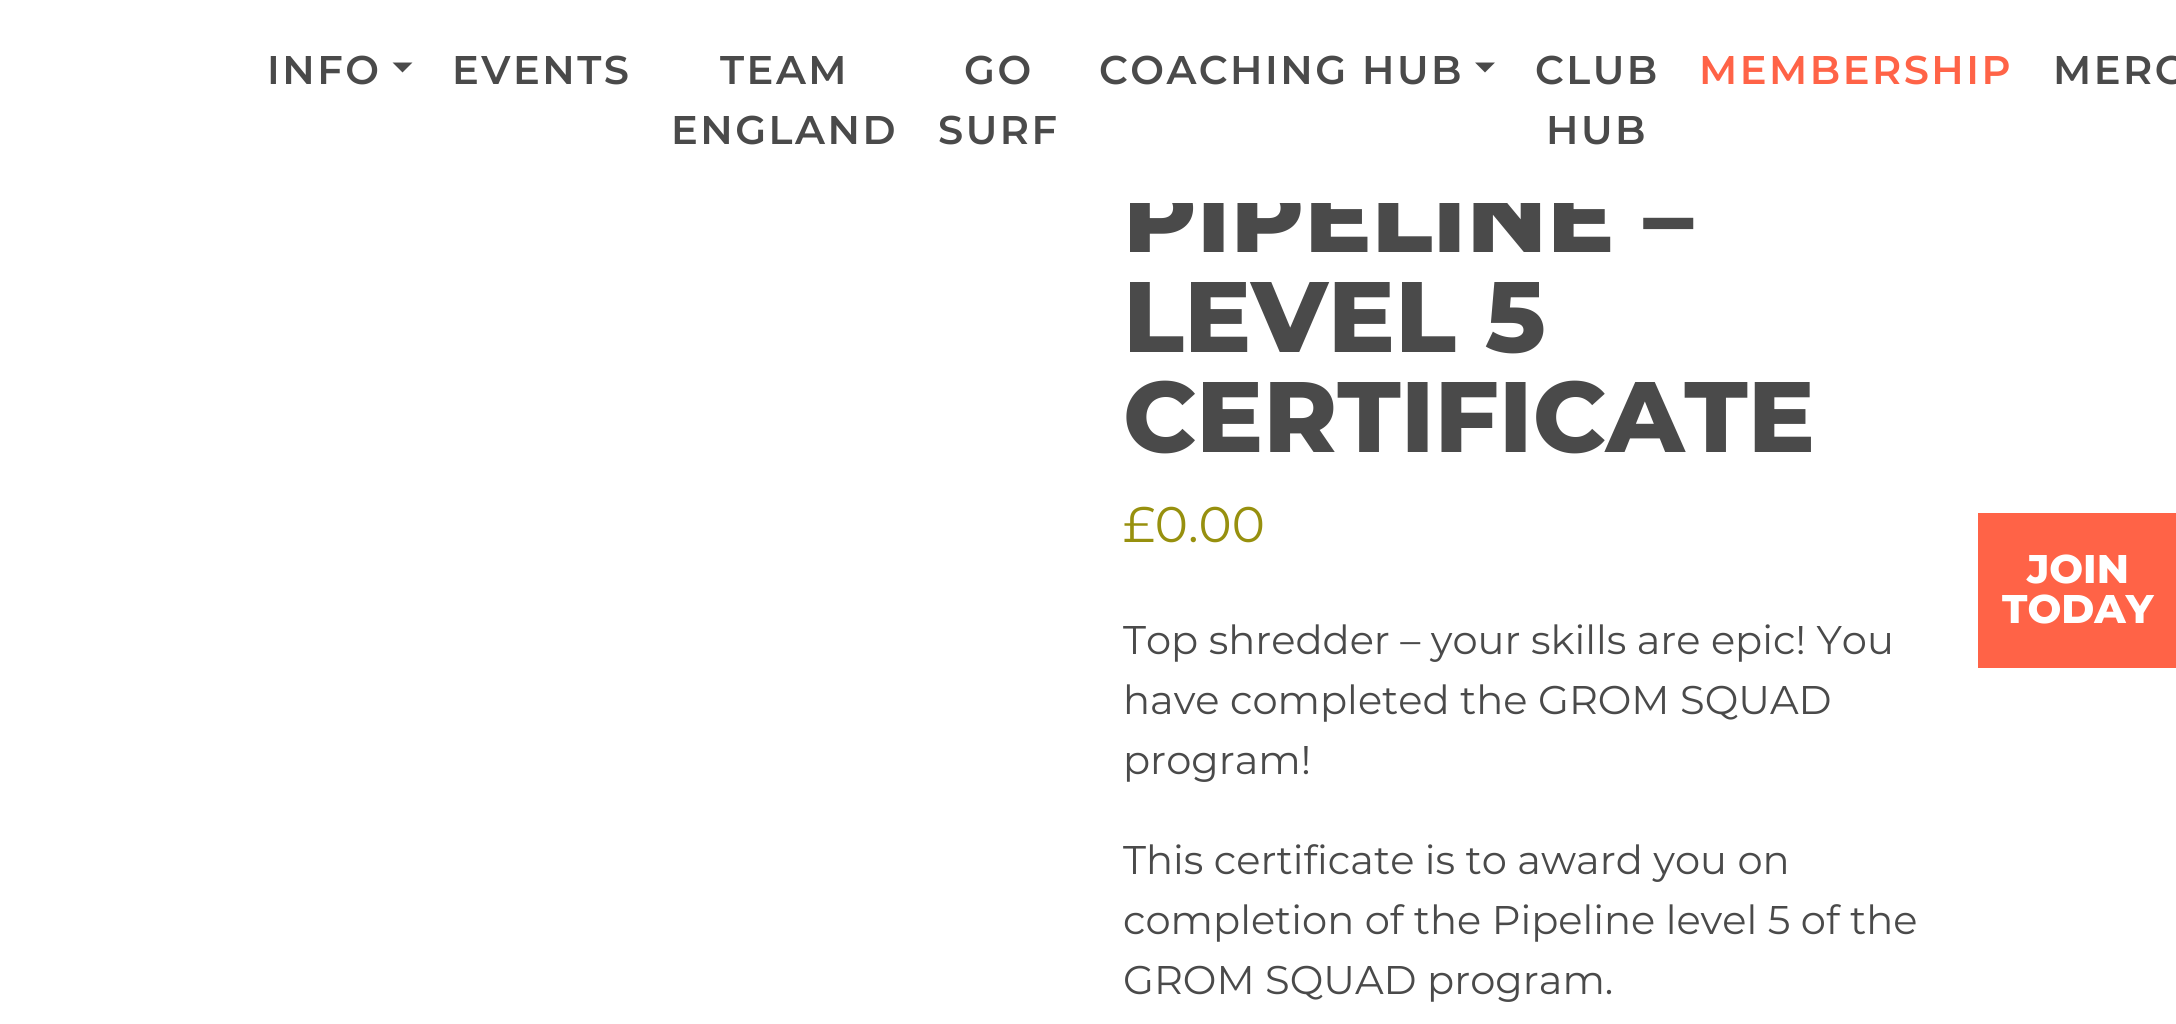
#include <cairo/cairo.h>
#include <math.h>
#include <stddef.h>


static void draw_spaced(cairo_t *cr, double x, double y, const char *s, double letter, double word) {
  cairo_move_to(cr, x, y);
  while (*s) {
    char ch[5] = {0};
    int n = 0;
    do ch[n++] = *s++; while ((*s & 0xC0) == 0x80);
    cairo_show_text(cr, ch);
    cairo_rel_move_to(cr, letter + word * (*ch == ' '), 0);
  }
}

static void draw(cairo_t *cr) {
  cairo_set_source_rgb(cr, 1, 1, 1);
  cairo_paint(cr);
  cairo_set_source_rgb(cr, 74 / 255.0, 74 / 255.0, 74 / 255.0);
  cairo_new_path(cr);
  cairo_move_to(cr, 392.5, 62.5);
  cairo_line_to(cr, 412.5, 62.5);
  cairo_line_to(cr, 402.5, 72.5);
  cairo_close_path(cr);
  cairo_fill(cr);
  cairo_new_path(cr);
  cairo_move_to(cr, 1475, 62.5);
  cairo_line_to(cr, 1495, 62.5);
  cairo_line_to(cr, 1485, 72.5);
  cairo_close_path(cr);
  cairo_fill(cr);
  cairo_set_source_rgb(cr, 1, 99 / 255.0, 71 / 255.0);
  cairo_rectangle(cr, 1978, 513, 198, 155);
  cairo_fill(cr);
  cairo_select_font_face(cr, "Montserrat SemiBold", CAIRO_FONT_SLANT_NORMAL, CAIRO_FONT_WEIGHT_NORMAL);
  cairo_set_font_size(cr, 40);
  cairo_set_source_rgb(cr, 74 / 255.0, 74 / 255.0, 74 / 255.0);
  draw_spaced(cr, 267, 84, "INFO", 2.5, 0);
  draw_spaced(cr, 452, 84, "EVENTS", 2.5, 0);
  draw_spaced(cr, 720, 84, "TEAM", 2.5, 0);
  draw_spaced(cr, 671, 144, "ENGLAND", 2.5, 0);
  draw_spaced(cr, 964, 84, "GO", 2.5, 0);
  draw_spaced(cr, 938, 144, "SURF", 2.5, 0);
  draw_spaced(cr, 1099, 84, "COACHING HUB", 2.5, 0);
  draw_spaced(cr, 1535, 84, "CLUB", 2.5, 0);
  draw_spaced(cr, 1546, 144, "HUB", 2.5, 0);
  cairo_set_source_rgb(cr, 1, 99 / 255.0, 71 / 255.0);
  draw_spaced(cr, 1699, 84, "MEMBERSHIP", 2.5, 0);
  cairo_set_source_rgb(cr, 74 / 255.0, 74 / 255.0, 74 / 255.0);
  draw_spaced(cr, 2053, 84, "MERC", 2.5, 0);
  cairo_select_font_face(cr, "Montserrat ExtraBold", CAIRO_FONT_SLANT_NORMAL, CAIRO_FONT_WEIGHT_NORMAL);
  cairo_set_font_size(cr, 100);
  cairo_move_to(cr, 1123, 252);
  cairo_show_text(cr, "PIPELINE –");
  cairo_set_source_rgb(cr, 1, 1, 1);
  cairo_rectangle(cr, 1130, 182, 480, 21);
  cairo_fill(cr);
  cairo_set_source_rgb(cr, 74 / 255.0, 74 / 255.0, 74 / 255.0);
  cairo_move_to(cr, 1123, 352);
  cairo_show_text(cr, "LEVEL 5");
  cairo_move_to(cr, 1123, 452);
  cairo_show_text(cr, "CERTIFICATE");
  cairo_select_font_face(cr, "Montserrat", CAIRO_FONT_SLANT_NORMAL, CAIRO_FONT_WEIGHT_NORMAL);
  cairo_set_font_size(cr, 50);
  cairo_set_source_rgb(cr, 151 / 255.0, 144 / 255.0, 14 / 255.0);
  cairo_move_to(cr, 1123, 542);
  cairo_show_text(cr, "£0.00");
  cairo_set_font_size(cr, 40);
  cairo_set_source_rgb(cr, 74 / 255.0, 74 / 255.0, 74 / 255.0);
  cairo_move_to(cr, 1123, 654);
  cairo_show_text(cr, "Top shredder – your skills are epic! You");
  cairo_move_to(cr, 1123, 714);
  cairo_show_text(cr, "have completed the GROM SQUAD");
  cairo_move_to(cr, 1123, 774);
  cairo_show_text(cr, "program!");
  cairo_move_to(cr, 1123, 874);
  cairo_show_text(cr, "This certificate is to award you on");
  cairo_move_to(cr, 1123, 934);
  cairo_show_text(cr, "completion of the Pipeline level 5 of the");
  cairo_move_to(cr, 1123, 994);
  cairo_show_text(cr, "GROM SQUAD program.");
  cairo_select_font_face(cr, "Montserrat ExtraBold", CAIRO_FONT_SLANT_NORMAL, CAIRO_FONT_WEIGHT_NORMAL);
  cairo_set_source_rgb(cr, 1, 1, 1);
  cairo_move_to(cr, 2027, 583);
  cairo_show_text(cr, "JOIN");
  cairo_move_to(cr, 2002, 623);
  cairo_show_text(cr, "TODAY");
}

int main(void) {
  cairo_surface_t *surface = cairo_image_surface_create(CAIRO_FORMAT_RGB24, 2176, 1024);
  cairo_t *cr = cairo_create(surface);
  cairo_font_options_t *options = cairo_font_options_create();
  cairo_font_options_set_hint_metrics(options, CAIRO_HINT_METRICS_OFF);
  cairo_font_options_set_hint_style(options, CAIRO_HINT_STYLE_NONE);
  cairo_set_font_options(cr, options);
  cairo_set_miter_limit(cr, 4);
  draw(cr);
  cairo_surface_write_to_png(surface, "out.png");
  cairo_font_options_destroy(options);
  cairo_destroy(cr);
  cairo_surface_destroy(surface);
  return 0;
}
